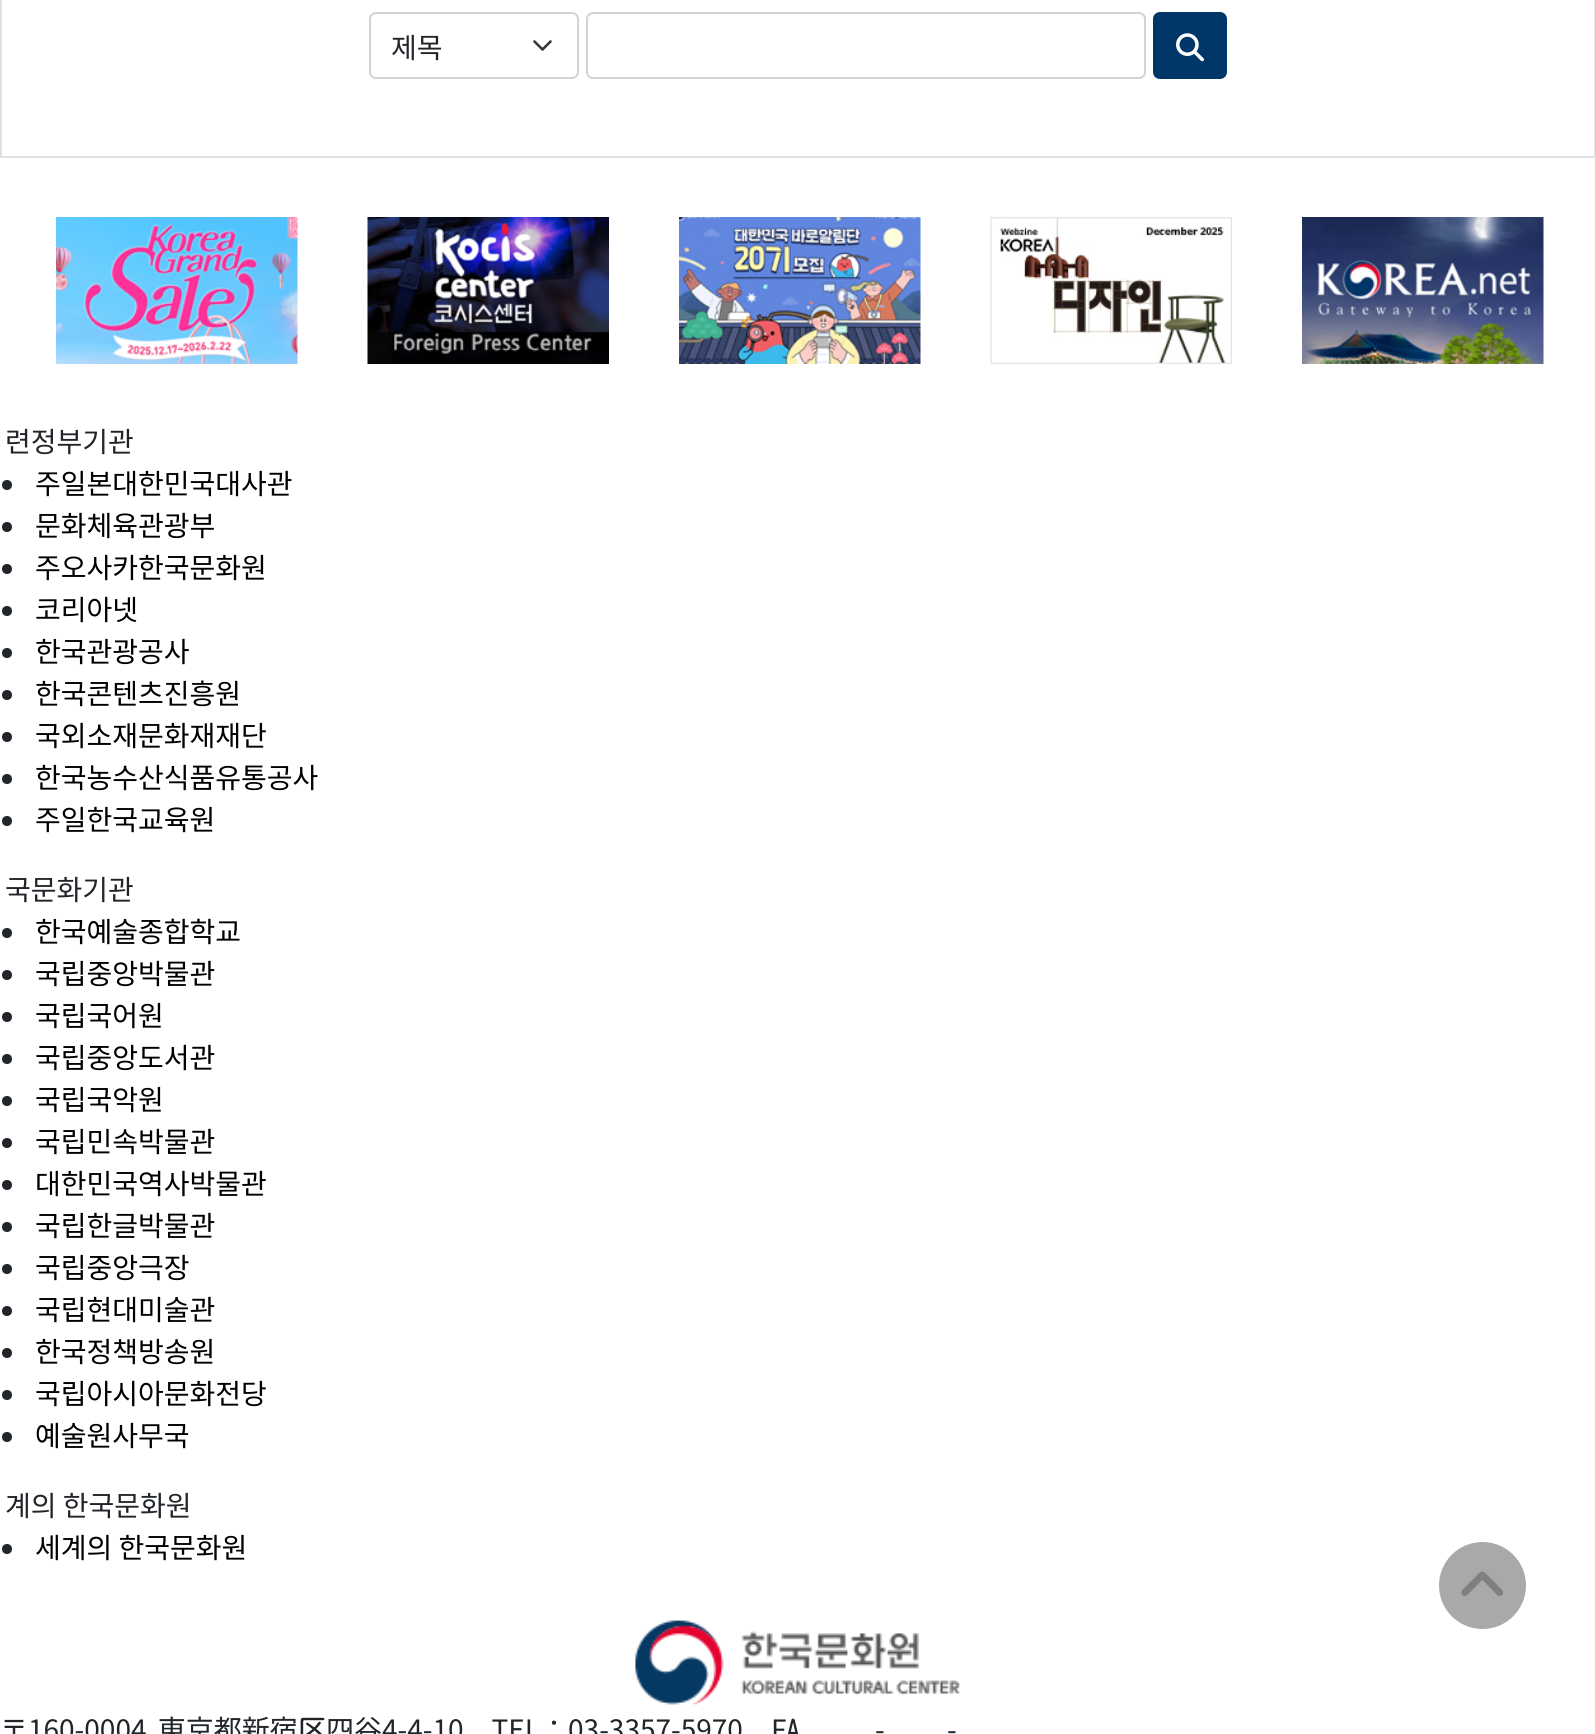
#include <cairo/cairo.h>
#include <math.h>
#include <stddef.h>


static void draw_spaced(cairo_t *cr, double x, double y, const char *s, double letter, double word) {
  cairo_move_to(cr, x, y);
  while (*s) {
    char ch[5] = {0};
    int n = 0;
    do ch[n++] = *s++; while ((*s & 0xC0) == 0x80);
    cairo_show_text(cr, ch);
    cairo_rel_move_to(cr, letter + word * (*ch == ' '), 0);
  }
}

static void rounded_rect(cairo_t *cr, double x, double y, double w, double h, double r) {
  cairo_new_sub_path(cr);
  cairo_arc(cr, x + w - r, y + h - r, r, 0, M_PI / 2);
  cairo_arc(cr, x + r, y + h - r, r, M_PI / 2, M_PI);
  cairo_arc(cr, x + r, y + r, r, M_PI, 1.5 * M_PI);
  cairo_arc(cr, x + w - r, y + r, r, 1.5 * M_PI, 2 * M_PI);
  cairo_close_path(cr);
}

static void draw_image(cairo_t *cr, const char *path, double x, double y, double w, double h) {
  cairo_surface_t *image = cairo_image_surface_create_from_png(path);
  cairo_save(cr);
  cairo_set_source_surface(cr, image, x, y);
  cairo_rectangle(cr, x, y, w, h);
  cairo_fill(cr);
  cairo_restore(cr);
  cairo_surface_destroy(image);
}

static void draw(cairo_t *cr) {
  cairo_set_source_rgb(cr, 1, 1, 1);
  cairo_paint(cr);
  cairo_rectangle(cr, 1, -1, 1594, 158);
  cairo_set_source_rgb(cr, 222 / 255.0, 226 / 255.0, 230 / 255.0);
  cairo_stroke(cr);
  cairo_new_path(cr);
  cairo_move_to(cr, 534.5, 41.5);
  cairo_line_to(cr, 542.5, 49.5);
  cairo_line_to(cr, 550.5, 41.5);
  cairo_set_source_rgb(cr, 52 / 255.0, 58 / 255.0, 64 / 255.0);
  cairo_set_line_width(cr, 2.6);
  cairo_set_line_cap(cr, CAIRO_LINE_CAP_ROUND);
  cairo_set_line_join(cr, CAIRO_LINE_JOIN_ROUND);
  cairo_stroke(cr);
  rounded_rect(cr, 370, 13, 208, 65, 6);
  cairo_set_source_rgb(cr, 206 / 255.0, 212 / 255.0, 218 / 255.0);
  cairo_set_line_width(cr, 2);
  cairo_set_line_cap(cr, CAIRO_LINE_CAP_BUTT);
  cairo_set_line_join(cr, CAIRO_LINE_JOIN_MITER);
  cairo_stroke(cr);
  rounded_rect(cr, 587, 13, 558, 65, 6);
  cairo_stroke(cr);
  cairo_set_source_rgb(cr, 1 / 255.0, 54 / 255.0, 104 / 255.0);
  rounded_rect(cr, 1153, 12, 74, 67, 7);
  cairo_fill(cr);
  draw_image(cr, "images/1.png", 1176, 33, 28, 29);
  draw_image(cr, "images/2.png", 56, 217, 242, 147);
  draw_image(cr, "images/3.png", 367, 217, 242, 147);
  draw_image(cr, "images/4.png", 679, 217, 242, 147);
  draw_image(cr, "images/5.png", 990, 217, 242, 147);
  draw_image(cr, "images/6.png", 1302, 217, 242, 147);
  cairo_set_source_rgb(cr, 33 / 255.0, 37 / 255.0, 41 / 255.0);
  cairo_arc(cr, 7, 485, 5, 0, 2 * M_PI);
  cairo_fill(cr);
  cairo_arc(cr, 7, 527, 5, 0, 2 * M_PI);
  cairo_fill(cr);
  cairo_arc(cr, 7, 569, 5, 0, 2 * M_PI);
  cairo_fill(cr);
  cairo_arc(cr, 7, 611, 5, 0, 2 * M_PI);
  cairo_fill(cr);
  cairo_arc(cr, 7, 653, 5, 0, 2 * M_PI);
  cairo_fill(cr);
  cairo_arc(cr, 7, 695, 5, 0, 2 * M_PI);
  cairo_fill(cr);
  cairo_arc(cr, 7, 737, 5, 0, 2 * M_PI);
  cairo_fill(cr);
  cairo_arc(cr, 7, 779, 5, 0, 2 * M_PI);
  cairo_fill(cr);
  cairo_arc(cr, 7, 821, 5, 0, 2 * M_PI);
  cairo_fill(cr);
  cairo_arc(cr, 7, 933, 5, 0, 2 * M_PI);
  cairo_fill(cr);
  cairo_arc(cr, 7, 975, 5, 0, 2 * M_PI);
  cairo_fill(cr);
  cairo_arc(cr, 7, 1017, 5, 0, 2 * M_PI);
  cairo_fill(cr);
  cairo_arc(cr, 7, 1059, 5, 0, 2 * M_PI);
  cairo_fill(cr);
  cairo_arc(cr, 7, 1101, 5, 0, 2 * M_PI);
  cairo_fill(cr);
  cairo_arc(cr, 7, 1143, 5, 0, 2 * M_PI);
  cairo_fill(cr);
  cairo_arc(cr, 7, 1185, 5, 0, 2 * M_PI);
  cairo_fill(cr);
  cairo_arc(cr, 7, 1227, 5, 0, 2 * M_PI);
  cairo_fill(cr);
  cairo_arc(cr, 7, 1269, 5, 0, 2 * M_PI);
  cairo_fill(cr);
  cairo_arc(cr, 7, 1311, 5, 0, 2 * M_PI);
  cairo_fill(cr);
  cairo_arc(cr, 7, 1353, 5, 0, 2 * M_PI);
  cairo_fill(cr);
  cairo_arc(cr, 7, 1395, 5, 0, 2 * M_PI);
  cairo_fill(cr);
  cairo_arc(cr, 7, 1437, 5, 0, 2 * M_PI);
  cairo_fill(cr);
  cairo_arc(cr, 7, 1549, 5, 0, 2 * M_PI);
  cairo_fill(cr);
  draw_image(cr, "images/7.png", 635, 1620, 325, 85);
  cairo_set_source_rgb(cr, 169 / 255.0, 169 / 255.0, 169 / 255.0);
  cairo_arc(cr, 1482.5, 1585.5, 43.5, 0, 2 * M_PI);
  cairo_fill(cr);
  draw_image(cr, "images/8.png", 1461, 1571, 43, 25);
  cairo_select_font_face(cr, "Noto Sans KR", CAIRO_FONT_SLANT_NORMAL, CAIRO_FONT_WEIGHT_NORMAL);
  cairo_set_font_size(cr, 28);
  cairo_set_source_rgb(cr, 33 / 255.0, 37 / 255.0, 41 / 255.0);
  cairo_move_to(cr, 391, 58);
  cairo_show_text(cr, "제목");
  cairo_move_to(cr, 5, 452);
  cairo_show_text(cr, "련정부기관");
  cairo_set_source_rgb(cr, 0, 0, 0);
  cairo_move_to(cr, 35, 494);
  cairo_show_text(cr, "주일본대한민국대사관");
  cairo_move_to(cr, 35, 536);
  cairo_show_text(cr, "문화체육관광부");
  cairo_move_to(cr, 35, 578);
  cairo_show_text(cr, "주오사카한국문화원");
  cairo_move_to(cr, 35, 620);
  cairo_show_text(cr, "코리아넷");
  cairo_move_to(cr, 35, 662);
  cairo_show_text(cr, "한국관광공사");
  cairo_move_to(cr, 35, 704);
  cairo_show_text(cr, "한국콘텐츠진흥원");
  cairo_move_to(cr, 35, 746);
  cairo_show_text(cr, "국외소재문화재재단");
  cairo_move_to(cr, 35, 788);
  cairo_show_text(cr, "한국농수산식품유통공사");
  cairo_move_to(cr, 35, 830);
  cairo_show_text(cr, "주일한국교육원");
  cairo_set_source_rgb(cr, 33 / 255.0, 37 / 255.0, 41 / 255.0);
  cairo_move_to(cr, 5, 900);
  cairo_show_text(cr, "국문화기관");
  cairo_set_source_rgb(cr, 0, 0, 0);
  cairo_move_to(cr, 35, 942);
  cairo_show_text(cr, "한국예술종합학교");
  cairo_move_to(cr, 35, 984);
  cairo_show_text(cr, "국립중앙박물관");
  cairo_move_to(cr, 35, 1026);
  cairo_show_text(cr, "국립국어원");
  cairo_move_to(cr, 35, 1068);
  cairo_show_text(cr, "국립중앙도서관");
  cairo_move_to(cr, 35, 1110);
  cairo_show_text(cr, "국립국악원");
  cairo_move_to(cr, 35, 1152);
  cairo_show_text(cr, "국립민속박물관");
  cairo_move_to(cr, 35, 1194);
  cairo_show_text(cr, "대한민국역사박물관");
  cairo_move_to(cr, 35, 1236);
  cairo_show_text(cr, "국립한글박물관");
  cairo_move_to(cr, 35, 1278);
  cairo_show_text(cr, "국립중앙극장");
  cairo_move_to(cr, 35, 1320);
  cairo_show_text(cr, "국립현대미술관");
  cairo_move_to(cr, 35, 1362);
  cairo_show_text(cr, "한국정책방송원");
  cairo_move_to(cr, 35, 1404);
  cairo_show_text(cr, "국립아시아문화전당");
  cairo_move_to(cr, 35, 1446);
  cairo_show_text(cr, "예술원사무국");
  cairo_set_source_rgb(cr, 33 / 255.0, 37 / 255.0, 41 / 255.0);
  cairo_move_to(cr, 5, 1516);
  cairo_show_text(cr, "계의 한국문화원");
  cairo_set_source_rgb(cr, 0, 0, 0);
  cairo_move_to(cr, 35, 1558);
  cairo_show_text(cr, "세계의 한국문화원");
  cairo_set_source_rgb(cr, 33 / 255.0, 37 / 255.0, 41 / 255.0);
  draw_spaced(cr, 0, 1740, "〒160-0004 東京都新宿", 0, 5);
  cairo_select_font_face(cr, "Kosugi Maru", CAIRO_FONT_SLANT_NORMAL, CAIRO_FONT_WEIGHT_NORMAL);
  cairo_move_to(cr, 298, 1740);
  cairo_show_text(cr, "区");
  cairo_select_font_face(cr, "Noto Sans KR", CAIRO_FONT_SLANT_NORMAL, CAIRO_FONT_WEIGHT_NORMAL);
  cairo_move_to(cr, 326, 1740);
  cairo_show_text(cr, "四谷4-4-10　TEL：03-3357-5970　F");
  cairo_select_font_face(cr, "Kosugi Maru", CAIRO_FONT_SLANT_NORMAL, CAIRO_FONT_WEIGHT_NORMAL);
  cairo_move_to(cr, 786, 1740);
  cairo_show_text(cr, "A");
  cairo_select_font_face(cr, "Noto Sans KR", CAIRO_FONT_SLANT_NORMAL, CAIRO_FONT_WEIGHT_NORMAL);
  cairo_move_to(cr, 875, 1740);
  cairo_show_text(cr, "-");
  cairo_move_to(cr, 947, 1740);
  cairo_show_text(cr, "-");
}

int main(void) {
  cairo_surface_t *surface = cairo_image_surface_create(CAIRO_FORMAT_RGB24, 1595, 1734);
  cairo_t *cr = cairo_create(surface);
  cairo_font_options_t *options = cairo_font_options_create();
  cairo_font_options_set_hint_metrics(options, CAIRO_HINT_METRICS_OFF);
  cairo_font_options_set_hint_style(options, CAIRO_HINT_STYLE_NONE);
  cairo_set_font_options(cr, options);
  cairo_set_miter_limit(cr, 4);
  draw(cr);
  cairo_surface_write_to_png(surface, "out.png");
  cairo_font_options_destroy(options);
  cairo_destroy(cr);
  cairo_surface_destroy(surface);
  return 0;
}
